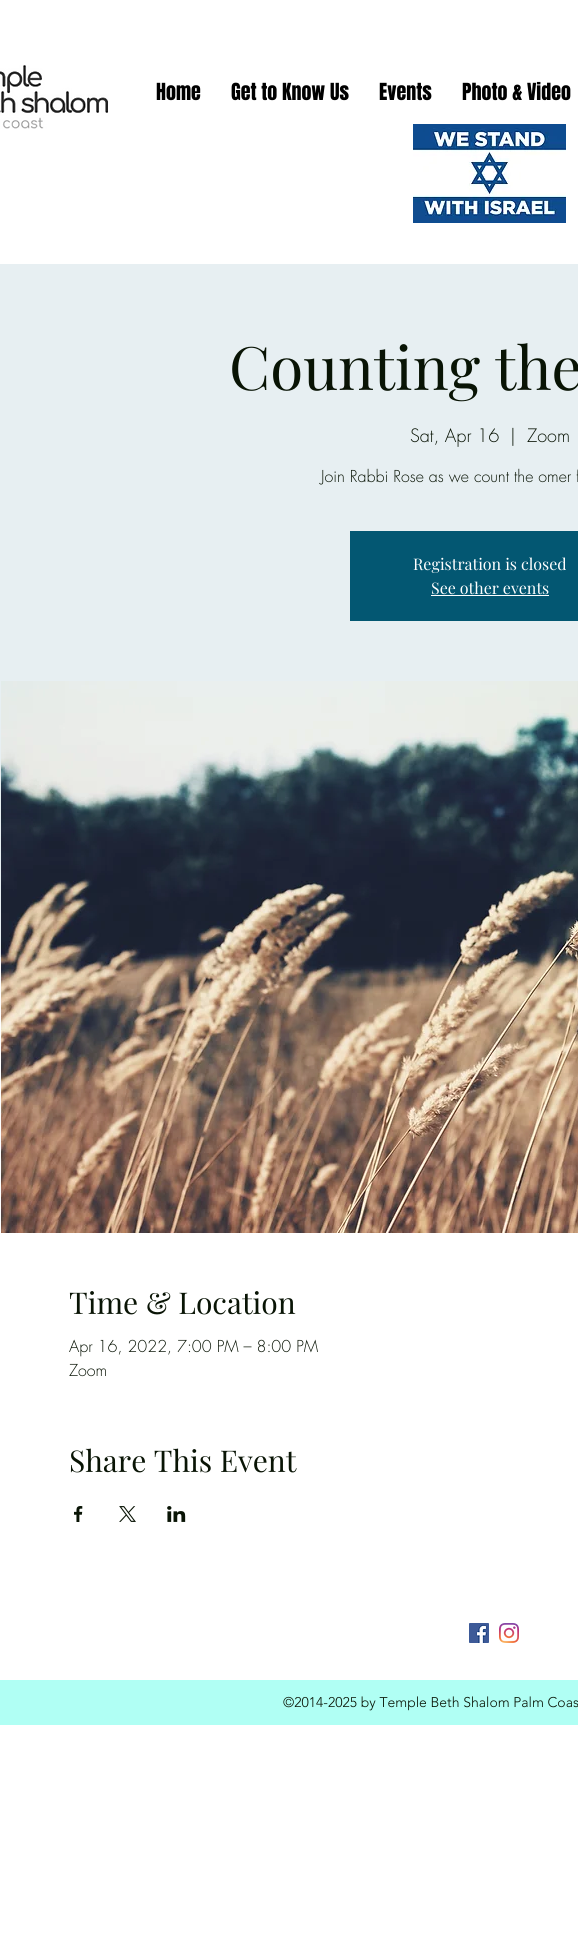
#include <cairo/cairo.h>
#include <math.h>
#include <stddef.h>


static void draw_image(cairo_t *cr, const char *path, double x, double y, double w, double h) {
  cairo_surface_t *image = cairo_image_surface_create_from_png(path);
  cairo_save(cr);
  cairo_set_source_surface(cr, image, x, y);
  cairo_rectangle(cr, x, y, w, h);
  cairo_fill(cr);
  cairo_restore(cr);
  cairo_surface_destroy(image);
}

static void draw(cairo_t *cr) {
  cairo_set_source_rgb(cr, 1, 1, 1);
  cairo_paint(cr);
  draw_image(cr, "images/1.png", 0, 65, 109, 64);
  draw_image(cr, "images/2.png", 413, 124, 153, 99);
  cairo_set_source_rgb(cr, 231 / 255.0, 239 / 255.0, 242 / 255.0);
  cairo_rectangle(cr, 0, 264, 578, 693);
  cairo_fill(cr);
  cairo_set_source_rgb(cr, 3 / 255.0, 87 / 255.0, 114 / 255.0);
  cairo_rectangle(cr, 350, 531, 228, 90);
  cairo_fill(cr);
  cairo_set_source_rgb(cr, 1, 1, 1);
  cairo_rectangle(cr, 431, 595, 118, 1);
  cairo_fill(cr);
  draw_image(cr, "images/3.png", 1, 681, 577, 552);
  draw_image(cr, "images/4.png", 74, 1506, 9, 16);
  draw_image(cr, "images/5.png", 119, 1506, 17, 16);
  draw_image(cr, "images/6.png", 167, 1506, 19, 16);
  draw_image(cr, "images/7.png", 469, 1623, 20, 20);
  draw_image(cr, "images/8.png", 499, 1623, 20, 20);
  cairo_set_source_rgb(cr, 176 / 255.0, 1, 244 / 255.0);
  cairo_rectangle(cr, 0, 1680, 578, 45);
  cairo_fill(cr);
  cairo_select_font_face(cr, "Anton", CAIRO_FONT_SLANT_NORMAL, CAIRO_FONT_WEIGHT_NORMAL);
  cairo_set_font_size(cr, 20);
  cairo_set_source_rgb(cr, 0, 0, 0);
  cairo_move_to(cr, 156, 100);
  cairo_show_text(cr, "Home");
  cairo_move_to(cr, 231, 100);
  cairo_show_text(cr, "Get to Know Us");
  cairo_move_to(cr, 379, 100);
  cairo_show_text(cr, "Events");
  cairo_move_to(cr, 462, 100);
  cairo_show_text(cr, "Photo & Video");
  cairo_select_font_face(cr, "Playfair Display", CAIRO_FONT_SLANT_NORMAL, CAIRO_FONT_WEIGHT_NORMAL);
  cairo_set_font_size(cr, 60);
  cairo_set_source_rgb(cr, 9 / 255.0, 20 / 255.0, 5 / 255.0);
  cairo_move_to(cr, 229, 390);
  cairo_show_text(cr, "Counting the");
  cairo_select_font_face(cr, "futura Light", CAIRO_FONT_SLANT_NORMAL, CAIRO_FONT_WEIGHT_NORMAL);
  cairo_set_font_size(cr, 18);
  cairo_move_to(cr, 410, 442);
  cairo_show_text(cr, "Sat, Apr 16");
  cairo_move_to(cr, 510, 442);
  cairo_show_text(cr, "|");
  cairo_move_to(cr, 527, 442);
  cairo_show_text(cr, "Zoom");
  cairo_set_font_size(cr, 16);
  cairo_move_to(cr, 321, 482);
  cairo_show_text(cr, "Join Rabbi Rose as we count the omer f");
  cairo_select_font_face(cr, "Playfair Display", CAIRO_FONT_SLANT_NORMAL, CAIRO_FONT_WEIGHT_NORMAL);
  cairo_set_source_rgb(cr, 1, 1, 1);
  cairo_move_to(cr, 413, 570);
  cairo_show_text(cr, "Registration is closed");
  cairo_move_to(cr, 431, 594);
  cairo_show_text(cr, "See other events");
  cairo_set_font_size(cr, 30);
  cairo_set_source_rgb(cr, 9 / 255.0, 20 / 255.0, 5 / 255.0);
  cairo_move_to(cr, 69, 1314);
  cairo_show_text(cr, "Time & Location");
  cairo_select_font_face(cr, "futura Light", CAIRO_FONT_SLANT_NORMAL, CAIRO_FONT_WEIGHT_NORMAL);
  cairo_set_font_size(cr, 16);
  cairo_move_to(cr, 69, 1352);
  cairo_show_text(cr, "Apr 16, 2022, 7:00 PM – 8:00 PM");
  cairo_move_to(cr, 69, 1376);
  cairo_show_text(cr, "Zoom");
  cairo_select_font_face(cr, "Playfair Display", CAIRO_FONT_SLANT_NORMAL, CAIRO_FONT_WEIGHT_NORMAL);
  cairo_set_font_size(cr, 30);
  cairo_move_to(cr, 69, 1472);
  cairo_show_text(cr, "Share This Event");
  cairo_select_font_face(cr, "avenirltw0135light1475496 Light", CAIRO_FONT_SLANT_NORMAL, CAIRO_FONT_WEIGHT_NORMAL);
  cairo_set_font_size(cr, 14);
  cairo_move_to(cr, 283, 1707);
  cairo_show_text(cr, "©2014-2025 by Temple Beth Shalom Palm Coas");
}

int main(void) {
  cairo_surface_t *surface = cairo_image_surface_create(CAIRO_FORMAT_RGB24, 578, 1956);
  cairo_t *cr = cairo_create(surface);
  cairo_font_options_t *options = cairo_font_options_create();
  cairo_font_options_set_hint_metrics(options, CAIRO_HINT_METRICS_OFF);
  cairo_font_options_set_hint_style(options, CAIRO_HINT_STYLE_NONE);
  cairo_set_font_options(cr, options);
  cairo_set_miter_limit(cr, 4);
  draw(cr);
  cairo_surface_write_to_png(surface, "out.png");
  cairo_font_options_destroy(options);
  cairo_destroy(cr);
  cairo_surface_destroy(surface);
  return 0;
}
